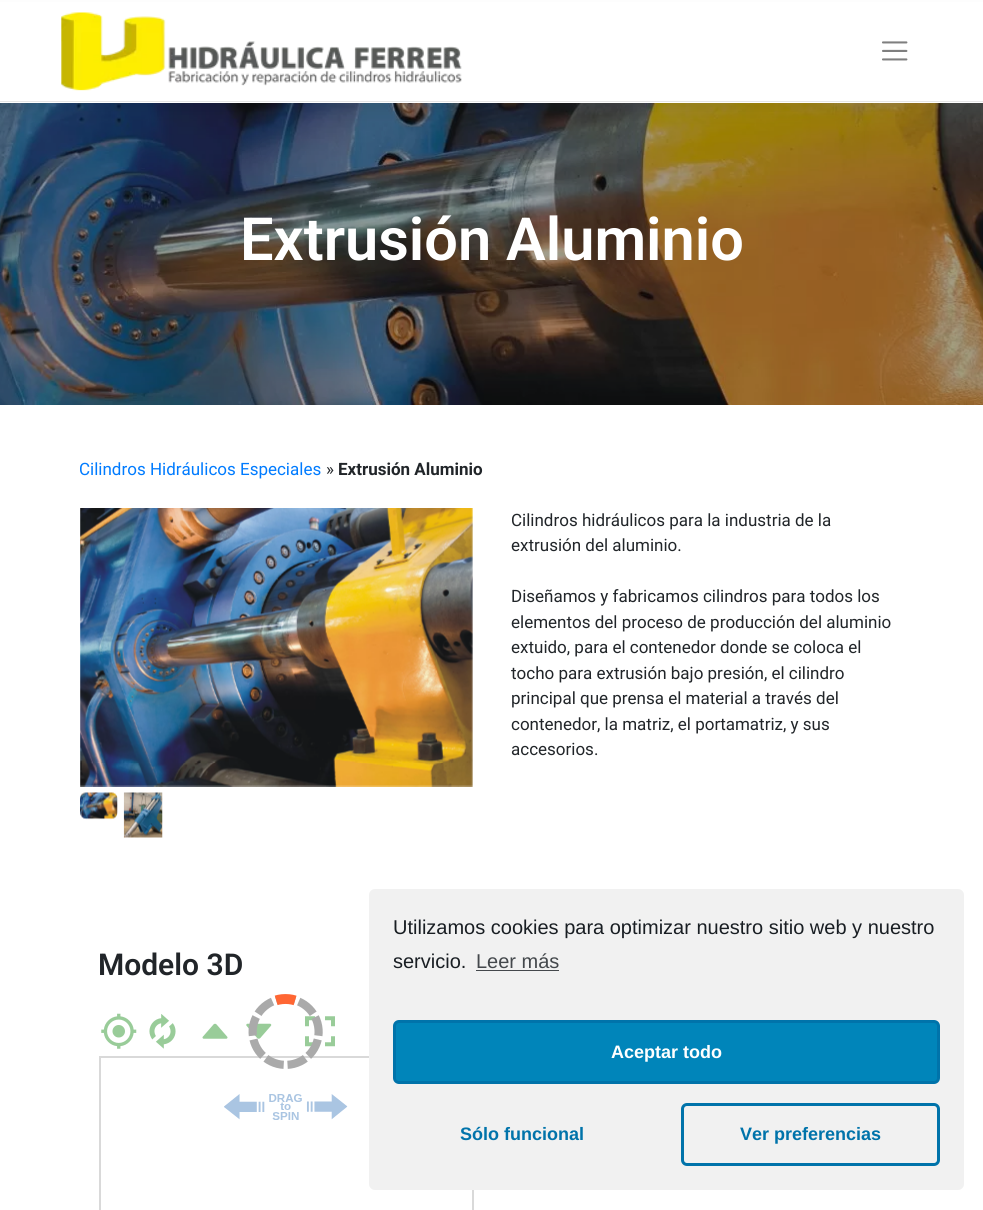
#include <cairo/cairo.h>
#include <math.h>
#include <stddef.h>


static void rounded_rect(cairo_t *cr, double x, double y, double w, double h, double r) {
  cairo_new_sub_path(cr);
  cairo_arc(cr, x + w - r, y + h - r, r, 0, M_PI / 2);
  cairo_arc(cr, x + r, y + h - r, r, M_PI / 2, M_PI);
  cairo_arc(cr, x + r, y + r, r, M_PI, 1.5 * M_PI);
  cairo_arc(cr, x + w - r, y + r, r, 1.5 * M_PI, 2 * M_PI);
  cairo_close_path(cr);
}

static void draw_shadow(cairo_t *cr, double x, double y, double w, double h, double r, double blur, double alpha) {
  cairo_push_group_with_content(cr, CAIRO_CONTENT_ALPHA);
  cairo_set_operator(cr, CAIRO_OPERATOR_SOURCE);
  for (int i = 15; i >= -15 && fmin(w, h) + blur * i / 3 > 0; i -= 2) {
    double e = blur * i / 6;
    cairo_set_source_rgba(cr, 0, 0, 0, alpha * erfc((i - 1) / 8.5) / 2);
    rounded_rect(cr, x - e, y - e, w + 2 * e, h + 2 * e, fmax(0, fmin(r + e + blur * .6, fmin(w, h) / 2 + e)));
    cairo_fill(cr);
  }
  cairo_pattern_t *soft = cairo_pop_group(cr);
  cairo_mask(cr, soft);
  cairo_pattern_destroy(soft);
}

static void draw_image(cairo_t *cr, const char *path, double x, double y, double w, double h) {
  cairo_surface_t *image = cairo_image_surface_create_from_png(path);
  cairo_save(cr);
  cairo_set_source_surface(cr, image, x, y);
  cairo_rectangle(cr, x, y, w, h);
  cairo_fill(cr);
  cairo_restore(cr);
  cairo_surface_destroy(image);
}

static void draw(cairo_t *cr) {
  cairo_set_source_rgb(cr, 1, 1, 1);
  cairo_paint(cr);
  draw_image(cr, "images/3.png", 0, 103, 983, 302);
  cairo_set_source_rgb(cr, 0, 0, 0);
  draw_shadow(cr, 0, 9, 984, 102, 0, 8.5, 0.05);
  cairo_set_source_rgb(cr, 1, 1, 1);
  cairo_rectangle(cr, 0, 2, 983, 101);
  cairo_fill(cr);
  cairo_set_source_rgb(cr, 230 / 255.0, 230 / 255.0, 230 / 255.0);
  cairo_rectangle(cr, 0, 101, 983, 1);
  cairo_fill(cr);
  draw_image(cr, "images/1.png", 61, 12, 401, 79);
  draw_image(cr, "images/2.png", 882, 41, 26, 20);
  draw_image(cr, "images/4.png", 80, 508, 393, 279);
  draw_image(cr, "images/5.png", 80, 792, 38, 28);
  draw_image(cr, "images/6.png", 123, 792, 40, 46);
  draw_image(cr, "images/7.png", 101, 1013, 36, 36);
  draw_image(cr, "images/8.png", 149, 1014, 27, 35);
  draw_image(cr, "images/12.png", 246, 1023, 26, 16);
  draw_image(cr, "images/13.png", 305, 1016, 30, 31);
  cairo_rectangle(cr, 100.5, 1057.5, 372, 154);
  cairo_set_source_rgb(cr, 217 / 255.0, 217 / 255.0, 217 / 255.0);
  cairo_set_line_width(cr, 3);
  cairo_stroke(cr);
  cairo_set_source_rgb(cr, 1, 1, 1);
  cairo_rectangle(cr, 101, 1058, 371, 152);
  cairo_fill(cr);
  draw_image(cr, "images/9.png", 248, 994, 75, 75);
  draw_image(cr, "images/10.png", 224, 1094, 124, 26);
  draw_image(cr, "images/11.png", 202, 1023, 26, 16);
  cairo_set_source_rgb(cr, 241 / 255.0, 241 / 255.0, 241 / 255.0);
  rounded_rect(cr, 369, 889, 595, 301, 6);
  cairo_fill(cr);
  cairo_set_source_rgb(cr, 68 / 255.0, 72 / 255.0, 76 / 255.0);
  cairo_rectangle(cr, 476, 970, 83, 1);
  cairo_fill(cr);
  cairo_set_source_rgb(cr, 0, 133 / 255.0, 186 / 255.0);
  rounded_rect(cr, 394.5, 1021.5, 544, 61, 4.5);
  cairo_fill_preserve(cr);
  cairo_set_source_rgb(cr, 0, 115 / 255.0, 170 / 255.0);
  cairo_stroke(cr);
  rounded_rect(cr, 682.5, 1104.5, 256, 60, 4.5);
  cairo_stroke(cr);
  cairo_select_font_face(cr, "Roboto SemiBold", CAIRO_FONT_SLANT_NORMAL, CAIRO_FONT_WEIGHT_NORMAL);
  cairo_set_font_size(cr, 59.5);
  cairo_set_source_rgb(cr, 1, 1, 1);
  cairo_move_to(cr, 240, 260);
  cairo_show_text(cr, "Extrusión Aluminio");
  cairo_select_font_face(cr, "Roboto", CAIRO_FONT_SLANT_NORMAL, CAIRO_FONT_WEIGHT_NORMAL);
  cairo_set_font_size(cr, 17);
  cairo_set_source_rgb(cr, 0, 123 / 255.0, 1);
  cairo_move_to(cr, 79, 475);
  cairo_show_text(cr, "Cilindros Hidráulicos Especiales");
  cairo_set_source_rgb(cr, 33 / 255.0, 37 / 255.0, 41 / 255.0);
  cairo_move_to(cr, 326, 475);
  cairo_show_text(cr, "»");
  cairo_select_font_face(cr, "Roboto", CAIRO_FONT_SLANT_NORMAL, CAIRO_FONT_WEIGHT_BOLD);
  cairo_move_to(cr, 338, 475);
  cairo_show_text(cr, "Extrusión Aluminio");
  cairo_select_font_face(cr, "Roboto", CAIRO_FONT_SLANT_NORMAL, CAIRO_FONT_WEIGHT_NORMAL);
  cairo_move_to(cr, 511, 526);
  cairo_show_text(cr, "Cilindros hidráulicos para la industria de la");
  cairo_move_to(cr, 511, 551);
  cairo_show_text(cr, "extrusión del aluminio.");
  cairo_move_to(cr, 511, 602);
  cairo_show_text(cr, "Diseñamos y fabricamos cilindros para todos los");
  cairo_move_to(cr, 511, 628);
  cairo_show_text(cr, "elementos del proceso de producción del aluminio");
  cairo_move_to(cr, 511, 653);
  cairo_show_text(cr, "extuido, para el contenedor donde se coloca el");
  cairo_move_to(cr, 511, 679);
  cairo_show_text(cr, "tocho para extrusión bajo presión, el cilindro");
  cairo_move_to(cr, 511, 704);
  cairo_show_text(cr, "principal que prensa el material a través del");
  cairo_move_to(cr, 511, 730);
  cairo_show_text(cr, "contenedor, la matriz, el portamatriz, y sus");
  cairo_move_to(cr, 511, 755);
  cairo_show_text(cr, "accesorios.");
  cairo_select_font_face(cr, "Roboto SemiBold", CAIRO_FONT_SLANT_NORMAL, CAIRO_FONT_WEIGHT_NORMAL);
  cairo_set_font_size(cr, 30);
  cairo_move_to(cr, 98, 975);
  cairo_show_text(cr, "Modelo 3D");
  cairo_select_font_face(cr, "Liberation Sans", CAIRO_FONT_SLANT_NORMAL, CAIRO_FONT_WEIGHT_NORMAL);
  cairo_set_font_size(cr, 20);
  cairo_set_source_rgb(cr, 25 / 255.0, 30 / 255.0, 35 / 255.0);
  cairo_move_to(cr, 393, 934);
  cairo_show_text(cr, "Utilizamos cookies para optimizar nuestro sitio web y nuestro");
  cairo_move_to(cr, 393, 968);
  cairo_show_text(cr, "servicio.");
  cairo_set_source_rgb(cr, 68 / 255.0, 72 / 255.0, 76 / 255.0);
  cairo_move_to(cr, 476, 968);
  cairo_show_text(cr, "Leer más");
  cairo_select_font_face(cr, "Liberation Sans", CAIRO_FONT_SLANT_NORMAL, CAIRO_FONT_WEIGHT_BOLD);
  cairo_set_font_size(cr, 18);
  cairo_set_source_rgb(cr, 1, 1, 1);
  cairo_move_to(cr, 611, 1058);
  cairo_show_text(cr, "Aceptar todo");
  cairo_set_source_rgb(cr, 0, 115 / 255.0, 170 / 255.0);
  cairo_move_to(cr, 460, 1140);
  cairo_show_text(cr, "Sólo funcional");
  cairo_move_to(cr, 740, 1140);
  cairo_show_text(cr, "Ver preferencias");
}

int main(void) {
  cairo_surface_t *surface = cairo_image_surface_create(CAIRO_FORMAT_RGB24, 983, 1210);
  cairo_t *cr = cairo_create(surface);
  cairo_font_options_t *options = cairo_font_options_create();
  cairo_font_options_set_hint_metrics(options, CAIRO_HINT_METRICS_OFF);
  cairo_font_options_set_hint_style(options, CAIRO_HINT_STYLE_NONE);
  cairo_set_font_options(cr, options);
  cairo_set_miter_limit(cr, 4);
  draw(cr);
  cairo_surface_write_to_png(surface, "out.png");
  cairo_font_options_destroy(options);
  cairo_destroy(cr);
  cairo_surface_destroy(surface);
  return 0;
}
